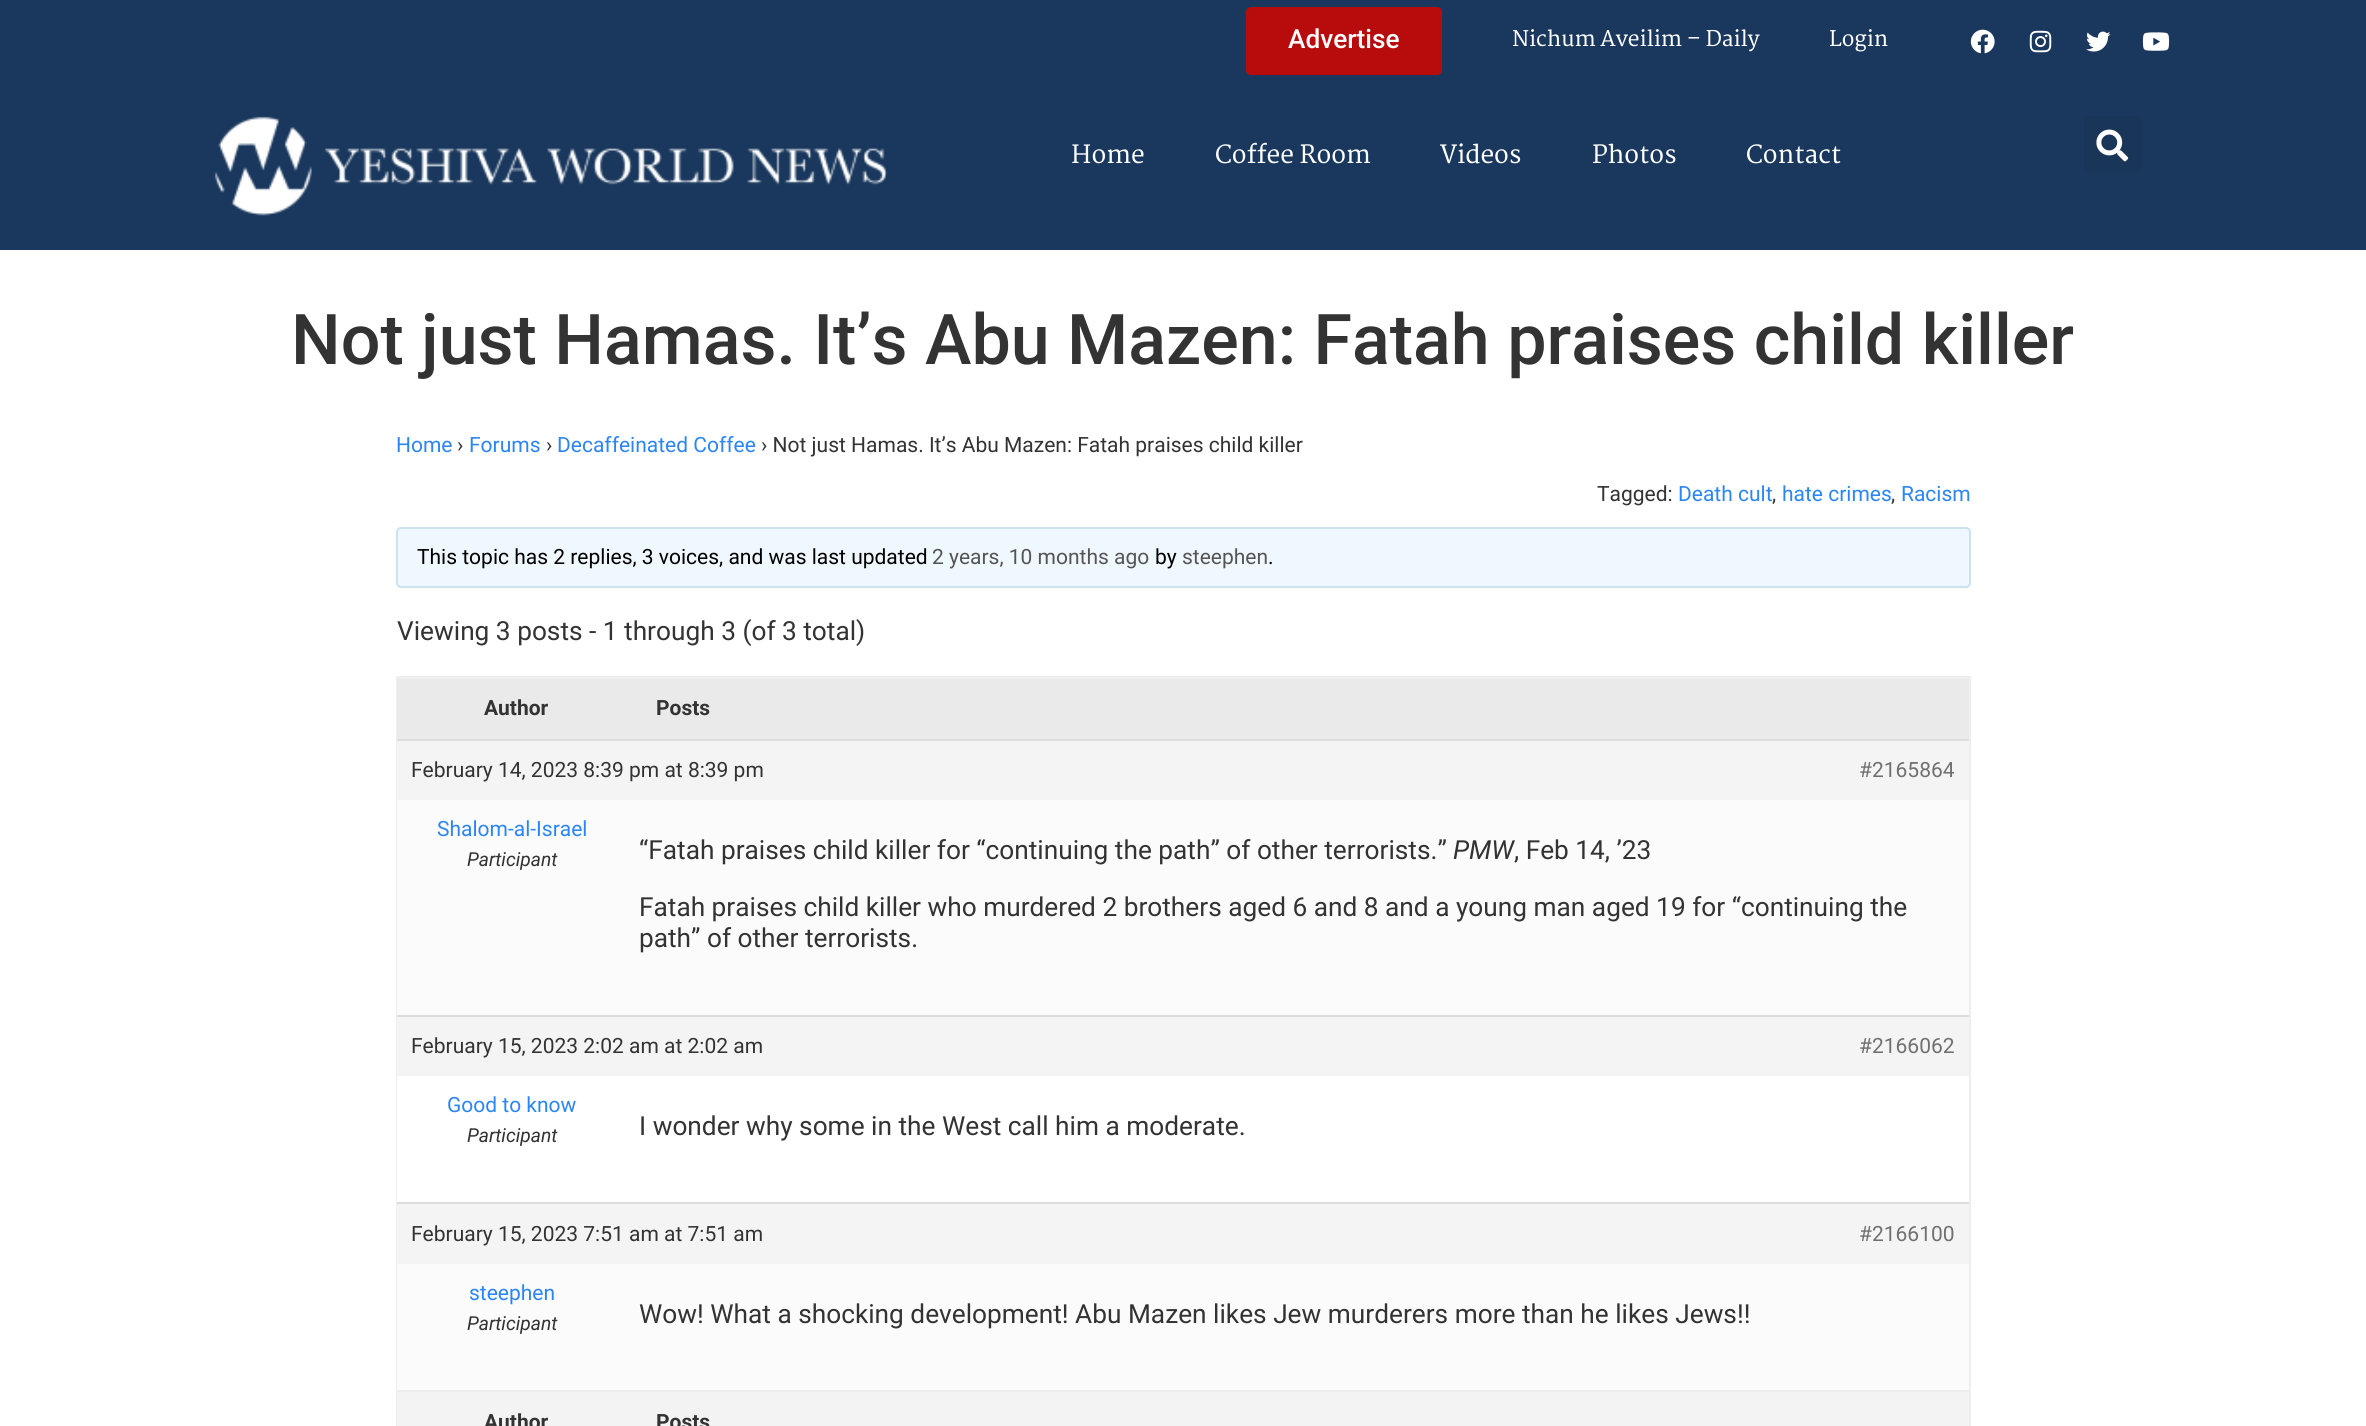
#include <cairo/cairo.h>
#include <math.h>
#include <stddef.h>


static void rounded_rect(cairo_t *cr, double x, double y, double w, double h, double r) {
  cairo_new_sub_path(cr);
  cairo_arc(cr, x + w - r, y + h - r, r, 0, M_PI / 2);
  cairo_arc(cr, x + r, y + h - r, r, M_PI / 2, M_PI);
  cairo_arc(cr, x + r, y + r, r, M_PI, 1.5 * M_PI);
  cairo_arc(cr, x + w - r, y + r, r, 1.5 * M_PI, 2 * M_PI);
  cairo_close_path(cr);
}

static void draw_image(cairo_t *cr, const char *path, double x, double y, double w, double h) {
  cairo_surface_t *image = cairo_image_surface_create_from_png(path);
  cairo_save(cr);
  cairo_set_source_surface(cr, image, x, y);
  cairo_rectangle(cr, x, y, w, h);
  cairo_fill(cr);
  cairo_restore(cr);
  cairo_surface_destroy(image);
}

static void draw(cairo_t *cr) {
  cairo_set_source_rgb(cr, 1, 1, 1);
  cairo_paint(cr);
  cairo_set_source_rgb(cr, 26 / 255.0, 56 / 255.0, 93 / 255.0);
  cairo_rectangle(cr, 0, 0, 2366, 250);
  cairo_fill(cr);
  cairo_set_source_rgb(cr, 184 / 255.0, 11 / 255.0, 11 / 255.0);
  rounded_rect(cr, 1246, 7, 196, 68, 5);
  cairo_fill(cr);
  draw_image(cr, "images/1.png", 1970, 29, 25, 25);
  draw_image(cr, "images/2.png", 2029, 30, 23, 23);
  draw_image(cr, "images/3.png", 2086, 31, 25, 21);
  draw_image(cr, "images/4.png", 2142, 32, 28, 19);
  draw_image(cr, "images/5.png", 214, 116, 674, 100);
  cairo_set_source_rgb(cr, 25 / 255.0, 53 / 255.0, 88 / 255.0);
  rounded_rect(cr, 2084, 116, 58, 57, 5);
  cairo_fill(cr);
  draw_image(cr, "images/6.png", 2096, 129, 33, 33);
  cairo_set_source_rgb(cr, 240 / 255.0, 248 / 255.0, 1);
  rounded_rect(cr, 397, 528, 1573, 59, 4);
  cairo_fill_preserve(cr);
  cairo_set_source_rgb(cr, 206 / 255.0, 225 / 255.0, 239 / 255.0);
  cairo_stroke(cr);
  cairo_rectangle(cr, 397, 677, 1573, 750);
  cairo_set_source_rgb(cr, 238 / 255.0, 238 / 255.0, 238 / 255.0);
  cairo_stroke(cr);
  cairo_set_source_rgb(cr, 234 / 255.0, 234 / 255.0, 234 / 255.0);
  cairo_rectangle(cr, 397, 679, 1572, 60);
  cairo_fill(cr);
  cairo_set_source_rgb(cr, 238 / 255.0, 238 / 255.0, 238 / 255.0);
  cairo_rectangle(cr, 397, 678, 1572, 1);
  cairo_fill(cr);
  cairo_set_source_rgb(cr, 244 / 255.0, 244 / 255.0, 244 / 255.0);
  cairo_rectangle(cr, 397, 741, 1572, 59);
  cairo_fill(cr);
  cairo_set_source_rgb(cr, 221 / 255.0, 221 / 255.0, 221 / 255.0);
  cairo_rectangle(cr, 397, 739, 1572, 2);
  cairo_fill(cr);
  cairo_set_source_rgb(cr, 251 / 255.0, 251 / 255.0, 251 / 255.0);
  cairo_rectangle(cr, 397, 800, 1572, 215);
  cairo_fill(cr);
  cairo_set_source_rgb(cr, 244 / 255.0, 244 / 255.0, 244 / 255.0);
  cairo_rectangle(cr, 397, 1017, 1572, 59);
  cairo_fill(cr);
  cairo_set_source_rgb(cr, 221 / 255.0, 221 / 255.0, 221 / 255.0);
  cairo_rectangle(cr, 397, 1015, 1572, 2);
  cairo_fill(cr);
  cairo_set_source_rgb(cr, 1, 1, 1);
  cairo_rectangle(cr, 397, 1076, 1, 126);
  cairo_fill(cr);
  cairo_set_source_rgb(cr, 244 / 255.0, 244 / 255.0, 244 / 255.0);
  cairo_rectangle(cr, 397, 1204, 1572, 60);
  cairo_fill(cr);
  cairo_set_source_rgb(cr, 221 / 255.0, 221 / 255.0, 221 / 255.0);
  cairo_rectangle(cr, 397, 1202, 1572, 2);
  cairo_fill(cr);
  cairo_set_source_rgb(cr, 251 / 255.0, 251 / 255.0, 251 / 255.0);
  cairo_rectangle(cr, 397, 1264, 1572, 126);
  cairo_fill(cr);
  cairo_set_source_rgb(cr, 243 / 255.0, 243 / 255.0, 243 / 255.0);
  cairo_rectangle(cr, 397, 1392, 1572, 34);
  cairo_fill(cr);
  cairo_set_source_rgb(cr, 238 / 255.0, 238 / 255.0, 238 / 255.0);
  cairo_rectangle(cr, 397, 1390, 1572, 2);
  cairo_fill(cr);
  cairo_select_font_face(cr, "Roboto Medium", CAIRO_FONT_SLANT_NORMAL, CAIRO_FONT_WEIGHT_NORMAL);
  cairo_set_font_size(cr, 26.25);
  cairo_set_source_rgb(cr, 1, 1, 1);
  cairo_move_to(cr, 1288, 48);
  cairo_show_text(cr, "Advertise");
  cairo_select_font_face(cr, "Martel SemiBold", CAIRO_FONT_SLANT_NORMAL, CAIRO_FONT_WEIGHT_NORMAL);
  cairo_set_font_size(cr, 21);
  cairo_move_to(cr, 1512, 46);
  cairo_show_text(cr, "Nichum Aveilim – Daily");
  cairo_move_to(cr, 1829, 46);
  cairo_show_text(cr, "Login");
  cairo_set_font_size(cr, 24.5);
  cairo_move_to(cr, 1071, 163);
  cairo_show_text(cr, "Home");
  cairo_move_to(cr, 1215, 163);
  cairo_show_text(cr, "Coffee Room");
  cairo_move_to(cr, 1440, 163);
  cairo_show_text(cr, "Videos");
  cairo_move_to(cr, 1592, 163);
  cairo_show_text(cr, "Photos");
  cairo_move_to(cr, 1746, 163);
  cairo_show_text(cr, "Contact");
  cairo_select_font_face(cr, "Roboto Medium", CAIRO_FONT_SLANT_NORMAL, CAIRO_FONT_WEIGHT_NORMAL);
  cairo_set_font_size(cr, 70);
  cairo_set_source_rgb(cr, 51 / 255.0, 51 / 255.0, 51 / 255.0);
  cairo_move_to(cr, 291, 364);
  cairo_show_text(cr, "Not just Hamas. It’s Abu Mazen: Fatah praises child killer");
  cairo_select_font_face(cr, "Roboto", CAIRO_FONT_SLANT_NORMAL, CAIRO_FONT_WEIGHT_NORMAL);
  cairo_set_font_size(cr, 21);
  cairo_set_source_rgb(cr, 43 / 255.0, 133 / 255.0, 244 / 255.0);
  cairo_move_to(cr, 396, 452);
  cairo_show_text(cr, "Home");
  cairo_set_source_rgb(cr, 51 / 255.0, 51 / 255.0, 51 / 255.0);
  cairo_move_to(cr, 457, 452);
  cairo_show_text(cr, "›");
  cairo_set_source_rgb(cr, 43 / 255.0, 133 / 255.0, 244 / 255.0);
  cairo_move_to(cr, 469, 452);
  cairo_show_text(cr, "Forums");
  cairo_set_source_rgb(cr, 51 / 255.0, 51 / 255.0, 51 / 255.0);
  cairo_move_to(cr, 546, 452);
  cairo_show_text(cr, "›");
  cairo_set_source_rgb(cr, 43 / 255.0, 133 / 255.0, 244 / 255.0);
  cairo_move_to(cr, 557, 452);
  cairo_show_text(cr, "Decaffeinated Coffee");
  cairo_set_source_rgb(cr, 51 / 255.0, 51 / 255.0, 51 / 255.0);
  cairo_move_to(cr, 761, 452);
  cairo_show_text(cr, "› Not just Hamas. It’s Abu Mazen: Fatah praises child killer");
  cairo_move_to(cr, 1597, 501);
  cairo_show_text(cr, "Tagged:");
  cairo_set_source_rgb(cr, 43 / 255.0, 133 / 255.0, 244 / 255.0);
  cairo_move_to(cr, 1678, 501);
  cairo_show_text(cr, "Death cult");
  cairo_set_source_rgb(cr, 51 / 255.0, 51 / 255.0, 51 / 255.0);
  cairo_move_to(cr, 1772, 501);
  cairo_show_text(cr, ",");
  cairo_set_source_rgb(cr, 43 / 255.0, 133 / 255.0, 244 / 255.0);
  cairo_move_to(cr, 1782, 501);
  cairo_show_text(cr, "hate crimes");
  cairo_set_source_rgb(cr, 51 / 255.0, 51 / 255.0, 51 / 255.0);
  cairo_move_to(cr, 1891, 501);
  cairo_show_text(cr, ",");
  cairo_set_source_rgb(cr, 43 / 255.0, 133 / 255.0, 244 / 255.0);
  cairo_move_to(cr, 1901, 501);
  cairo_show_text(cr, "Racism");
  cairo_set_source_rgb(cr, 0, 0, 0);
  cairo_move_to(cr, 417, 564);
  cairo_show_text(cr, "This topic has 2 replies, 3 voices, and was last updated");
  cairo_set_source_rgb(cr, 85 / 255.0, 85 / 255.0, 85 / 255.0);
  cairo_move_to(cr, 932, 564);
  cairo_show_text(cr, "2 years, 10 months ago");
  cairo_set_source_rgb(cr, 0, 0, 0);
  cairo_move_to(cr, 1155, 564);
  cairo_show_text(cr, "by");
  cairo_set_source_rgb(cr, 85 / 255.0, 85 / 255.0, 85 / 255.0);
  cairo_move_to(cr, 1182, 564);
  cairo_show_text(cr, "steephen");
  cairo_set_source_rgb(cr, 0, 0, 0);
  cairo_move_to(cr, 1268, 564);
  cairo_show_text(cr, ".");
  cairo_set_font_size(cr, 26.25);
  cairo_set_source_rgb(cr, 51 / 255.0, 51 / 255.0, 51 / 255.0);
  cairo_move_to(cr, 397, 640);
  cairo_show_text(cr, "Viewing 3 posts - 1 through 3 (of 3 total)");
  cairo_select_font_face(cr, "Roboto", CAIRO_FONT_SLANT_NORMAL, CAIRO_FONT_WEIGHT_BOLD);
  cairo_set_font_size(cr, 21);
  cairo_move_to(cr, 484, 715);
  cairo_show_text(cr, "Author");
  cairo_move_to(cr, 656, 715);
  cairo_show_text(cr, "Posts");
  cairo_select_font_face(cr, "Roboto", CAIRO_FONT_SLANT_NORMAL, CAIRO_FONT_WEIGHT_NORMAL);
  cairo_move_to(cr, 411, 777);
  cairo_show_text(cr, "February 14, 2023 8:39 pm at 8:39 pm");
  cairo_set_source_rgb(cr, 112 / 255.0, 112 / 255.0, 112 / 255.0);
  cairo_move_to(cr, 1859, 777);
  cairo_show_text(cr, "#2165864");
  cairo_set_source_rgb(cr, 43 / 255.0, 133 / 255.0, 244 / 255.0);
  cairo_move_to(cr, 437, 836);
  cairo_show_text(cr, "Shalom-al-Israel");
  cairo_select_font_face(cr, "Roboto", CAIRO_FONT_SLANT_ITALIC, CAIRO_FONT_WEIGHT_NORMAL);
  cairo_set_font_size(cr, 19.25);
  cairo_set_source_rgb(cr, 51 / 255.0, 51 / 255.0, 51 / 255.0);
  cairo_move_to(cr, 467, 866);
  cairo_show_text(cr, "Participant");
  cairo_select_font_face(cr, "Roboto", CAIRO_FONT_SLANT_NORMAL, CAIRO_FONT_WEIGHT_NORMAL);
  cairo_set_font_size(cr, 26.25);
  cairo_move_to(cr, 639, 859);
  cairo_show_text(cr, "“Fatah praises child killer for “continuing the path” of other terrorists.”");
  cairo_select_font_face(cr, "Roboto", CAIRO_FONT_SLANT_ITALIC, CAIRO_FONT_WEIGHT_NORMAL);
  cairo_move_to(cr, 1453, 859);
  cairo_show_text(cr, "PMW");
  cairo_select_font_face(cr, "Roboto", CAIRO_FONT_SLANT_NORMAL, CAIRO_FONT_WEIGHT_NORMAL);
  cairo_move_to(cr, 1514, 859);
  cairo_show_text(cr, ", Feb 14, ’23");
  cairo_move_to(cr, 639, 916);
  cairo_show_text(cr, "Fatah praises child killer who murdered 2 brothers aged 6 and 8 and a young man aged 19 for “continuing the");
  cairo_move_to(cr, 639, 947);
  cairo_show_text(cr, "path” of other terrorists.");
  cairo_set_font_size(cr, 21);
  cairo_move_to(cr, 411, 1053);
  cairo_show_text(cr, "February 15, 2023 2:02 am at 2:02 am");
  cairo_set_source_rgb(cr, 112 / 255.0, 112 / 255.0, 112 / 255.0);
  cairo_move_to(cr, 1859, 1053);
  cairo_show_text(cr, "#2166062");
  cairo_set_source_rgb(cr, 43 / 255.0, 133 / 255.0, 244 / 255.0);
  cairo_move_to(cr, 447, 1112);
  cairo_show_text(cr, "Good to know");
  cairo_select_font_face(cr, "Roboto", CAIRO_FONT_SLANT_ITALIC, CAIRO_FONT_WEIGHT_NORMAL);
  cairo_set_font_size(cr, 19.25);
  cairo_set_source_rgb(cr, 51 / 255.0, 51 / 255.0, 51 / 255.0);
  cairo_move_to(cr, 467, 1142);
  cairo_show_text(cr, "Participant");
  cairo_select_font_face(cr, "Roboto", CAIRO_FONT_SLANT_NORMAL, CAIRO_FONT_WEIGHT_NORMAL);
  cairo_set_font_size(cr, 26.25);
  cairo_move_to(cr, 639, 1135);
  cairo_show_text(cr, "I wonder why some in the West call him a moderate.");
  cairo_set_font_size(cr, 21);
  cairo_move_to(cr, 411, 1241);
  cairo_show_text(cr, "February 15, 2023 7:51 am at 7:51 am");
  cairo_set_source_rgb(cr, 112 / 255.0, 112 / 255.0, 112 / 255.0);
  cairo_move_to(cr, 1859, 1241);
  cairo_show_text(cr, "#2166100");
  cairo_set_source_rgb(cr, 43 / 255.0, 133 / 255.0, 244 / 255.0);
  cairo_move_to(cr, 469, 1300);
  cairo_show_text(cr, "steephen");
  cairo_select_font_face(cr, "Roboto", CAIRO_FONT_SLANT_ITALIC, CAIRO_FONT_WEIGHT_NORMAL);
  cairo_set_font_size(cr, 19.25);
  cairo_set_source_rgb(cr, 51 / 255.0, 51 / 255.0, 51 / 255.0);
  cairo_move_to(cr, 467, 1330);
  cairo_show_text(cr, "Participant");
  cairo_select_font_face(cr, "Roboto", CAIRO_FONT_SLANT_NORMAL, CAIRO_FONT_WEIGHT_NORMAL);
  cairo_set_font_size(cr, 26.25);
  cairo_move_to(cr, 639, 1323);
  cairo_show_text(cr, "Wow! What a shocking development! Abu Mazen likes Jew murderers more than he likes Jews!!");
  cairo_select_font_face(cr, "Roboto", CAIRO_FONT_SLANT_NORMAL, CAIRO_FONT_WEIGHT_BOLD);
  cairo_set_font_size(cr, 21);
  cairo_move_to(cr, 484, 1429);
  cairo_show_text(cr, "Author");
  cairo_move_to(cr, 656, 1429);
  cairo_show_text(cr, "Posts");
}

int main(void) {
  cairo_surface_t *surface = cairo_image_surface_create(CAIRO_FORMAT_RGB24, 2366, 1426);
  cairo_t *cr = cairo_create(surface);
  cairo_font_options_t *options = cairo_font_options_create();
  cairo_font_options_set_hint_metrics(options, CAIRO_HINT_METRICS_OFF);
  cairo_font_options_set_hint_style(options, CAIRO_HINT_STYLE_NONE);
  cairo_set_font_options(cr, options);
  cairo_set_miter_limit(cr, 4);
  draw(cr);
  cairo_surface_write_to_png(surface, "out.png");
  cairo_font_options_destroy(options);
  cairo_destroy(cr);
  cairo_surface_destroy(surface);
  return 0;
}
